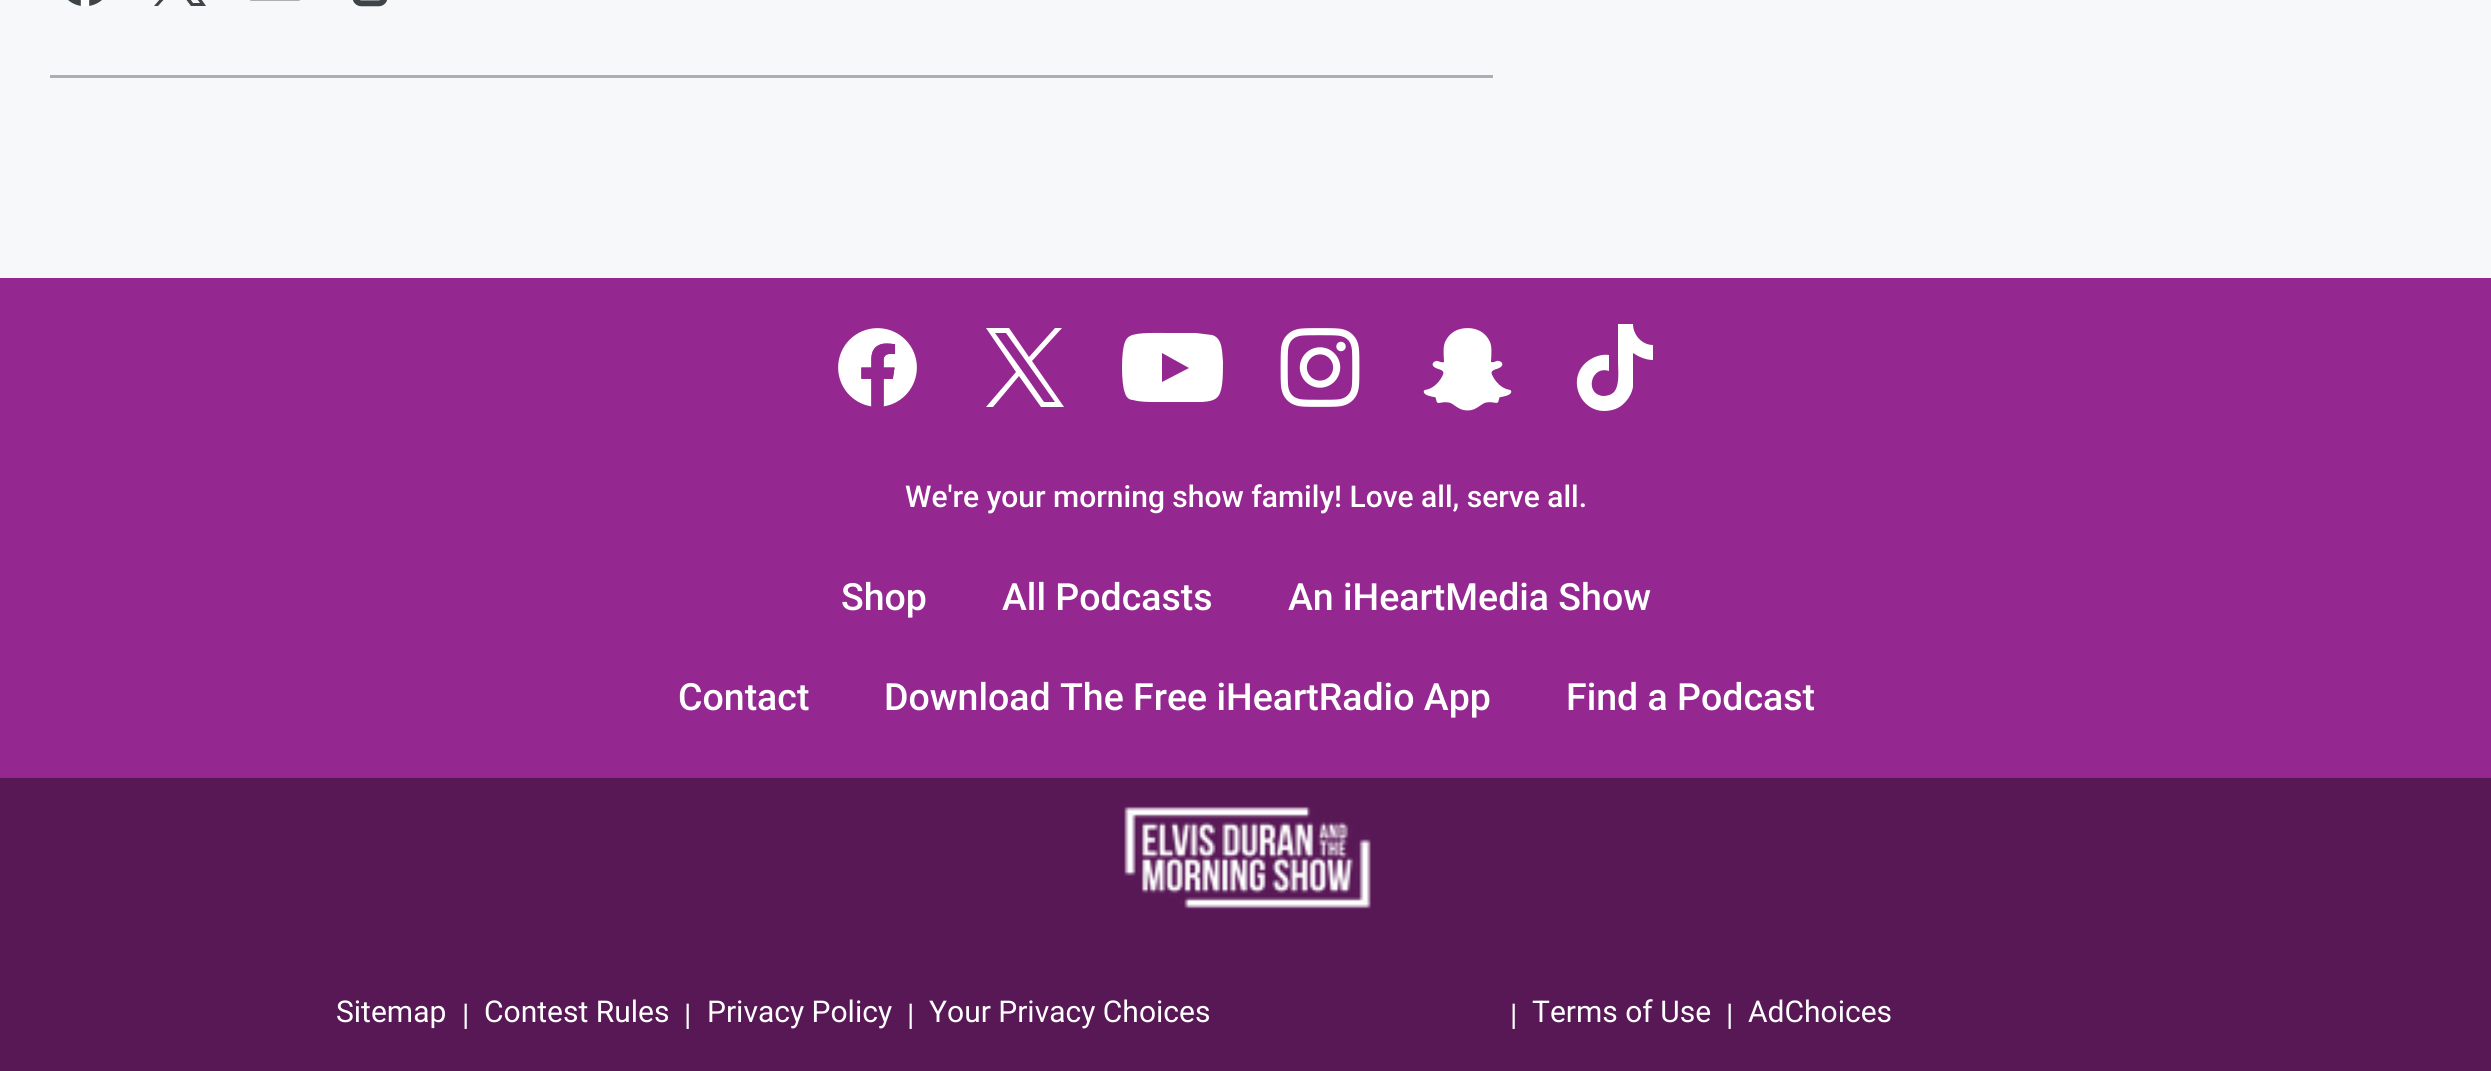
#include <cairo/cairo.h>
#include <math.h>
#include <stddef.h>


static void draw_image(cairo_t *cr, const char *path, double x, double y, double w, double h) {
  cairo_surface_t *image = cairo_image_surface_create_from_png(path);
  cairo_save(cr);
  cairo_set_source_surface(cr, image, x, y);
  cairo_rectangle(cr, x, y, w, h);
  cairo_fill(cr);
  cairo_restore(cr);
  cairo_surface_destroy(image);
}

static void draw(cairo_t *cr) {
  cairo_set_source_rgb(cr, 246 / 255.0, 248 / 255.0, 249 / 255.0);
  cairo_paint(cr);
  draw_image(cr, "images/1.png", 68, 0, 34, 6);
  cairo_set_source_rgb(cr, 63 / 255.0, 68 / 255.0, 71 / 255.0);
  cairo_new_path(cr);
  cairo_move_to(cr, 185, -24);
  cairo_line_to(cr, 205, -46);
  cairo_line_to(cr, 200, -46);
  cairo_line_to(cr, 183, -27);
  cairo_line_to(cr, 169, -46);
  cairo_line_to(cr, 154, -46);
  cairo_line_to(cr, 174, -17);
  cairo_line_to(cr, 154, 6);
  cairo_line_to(cr, 158, 6);
  cairo_line_to(cr, 176, -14);
  cairo_line_to(cr, 191, 6);
  cairo_line_to(cr, 206, 6);
  cairo_close_path(cr);
  cairo_move_to(cr, 179, -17);
  cairo_line_to(cr, 160, -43);
  cairo_line_to(cr, 167, -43);
  cairo_line_to(cr, 200, 3);
  cairo_line_to(cr, 193, 3);
  cairo_close_path(cr);
  cairo_fill(cr);
  draw_image(cr, "images/2.png", 249, 0, 52, 1);
  draw_image(cr, "images/3.png", 353, 0, 34, 7);
  cairo_set_source_rgb(cr, 169 / 255.0, 175 / 255.0, 178 / 255.0);
  cairo_rectangle(cr, 50, 75, 1443, 3);
  cairo_fill(cr);
  cairo_set_source_rgb(cr, 148 / 255.0, 40 / 255.0, 144 / 255.0);
  cairo_rectangle(cr, 0, 278, 2491, 500);
  cairo_fill(cr);
  draw_image(cr, "images/4.png", 838, 328, 79, 79);
  cairo_set_source_rgb(cr, 1, 1, 1);
  cairo_new_path(cr);
  cairo_move_to(cr, 1032, 361);
  cairo_line_to(cr, 1062, 328);
  cairo_line_to(cr, 1055, 328);
  cairo_line_to(cr, 1029, 357);
  cairo_line_to(cr, 1009, 328);
  cairo_line_to(cr, 986, 328);
  cairo_line_to(cr, 1016, 372);
  cairo_line_to(cr, 986, 407);
  cairo_line_to(cr, 993, 407);
  cairo_line_to(cr, 1019, 376);
  cairo_line_to(cr, 1041, 407);
  cairo_line_to(cr, 1064, 407);
  cairo_close_path(cr);
  cairo_move_to(cr, 1023, 372);
  cairo_line_to(cr, 995, 333);
  cairo_line_to(cr, 1006, 333);
  cairo_line_to(cr, 1055, 402);
  cairo_line_to(cr, 1044, 402);
  cairo_close_path(cr);
  cairo_fill(cr);
  cairo_set_fill_rule(cr, CAIRO_FILL_RULE_EVEN_ODD);
  cairo_new_path(cr);
  cairo_move_to(cr, 1212, 335);
  cairo_curve_to(cr, 1223, 338, 1222, 353, 1223, 362);
  cairo_curve_to(cr, 1223, 370, 1223, 377, 1222, 385);
  cairo_curve_to(cr, 1220, 398, 1216, 401, 1202, 402);
  cairo_line_to(cr, 1183, 402);
  cairo_line_to(cr, 1156, 402);
  cairo_curve_to(cr, 1148, 402, 1140, 402, 1133, 400);
  cairo_curve_to(cr, 1129, 400, 1126, 397, 1125, 393);
  cairo_curve_to(cr, 1121, 384, 1121, 351, 1125, 342);
  cairo_curve_to(cr, 1126, 339, 1128, 337, 1130, 336);
  cairo_curve_to(cr, 1137, 332, 1159, 333, 1167, 333);
  cairo_line_to(cr, 1196, 333);
  cairo_close_path(cr);
  cairo_move_to(cr, 1189, 368);
  cairo_line_to(cr, 1162, 382);
  cairo_line_to(cr, 1162, 353);
  cairo_close_path(cr);
  cairo_fill(cr);
  draw_image(cr, "images/5.png", 1280, 328, 80, 79);
  draw_image(cr, "images/6.png", 1423, 328, 89, 83);
  cairo_set_fill_rule(cr, CAIRO_FILL_RULE_WINDING);
  cairo_new_path(cr);
  cairo_move_to(cr, 1653, 345);
  cairo_curve_to(cr, 1642, 345, 1633, 335, 1633, 324);
  cairo_line_to(cr, 1618, 324);
  cairo_line_to(cr, 1618, 362);
  cairo_curve_to(cr, 1618, 370, 1620, 385, 1614, 392);
  cairo_curve_to(cr, 1611, 395, 1607, 396, 1603, 396);
  cairo_curve_to(cr, 1584, 394, 1591, 365, 1609, 371);
  cairo_line_to(cr, 1609, 355);
  cairo_curve_to(cr, 1603, 354, 1596, 356, 1591, 359);
  cairo_curve_to(cr, 1563, 375, 1580, 418, 1612, 410);
  cairo_curve_to(cr, 1622, 408, 1631, 398, 1633, 387);
  cairo_line_to(cr, 1633, 353);
  cairo_curve_to(cr, 1639, 357, 1646, 360, 1653, 360);
  cairo_close_path(cr);
  cairo_fill(cr);
  cairo_set_source_rgb(cr, 88 / 255.0, 24 / 255.0, 86 / 255.0);
  cairo_rectangle(cr, 0, 778, 2491, 293);
  cairo_fill(cr);
  draw_image(cr, "images/7.png", 1124, 806, 247, 103);
  cairo_select_font_face(cr, "Roboto Medium", CAIRO_FONT_SLANT_NORMAL, CAIRO_FONT_WEIGHT_NORMAL);
  cairo_set_font_size(cr, 30);
  cairo_set_source_rgb(cr, 1, 1, 1);
  cairo_move_to(cr, 905, 507);
  cairo_show_text(cr, "We're your morning show family! Love all, serve all.");
  cairo_set_font_size(cr, 37.5);
  cairo_move_to(cr, 841, 610);
  cairo_show_text(cr, "Shop");
  cairo_move_to(cr, 1002, 610);
  cairo_show_text(cr, "All Podcasts");
  cairo_move_to(cr, 1288, 610);
  cairo_show_text(cr, "An iHeartMedia Show");
  cairo_move_to(cr, 678, 710);
  cairo_show_text(cr, "Contact");
  cairo_move_to(cr, 884, 710);
  cairo_show_text(cr, "Download The Free iHeartRadio App");
  cairo_move_to(cr, 1566, 710);
  cairo_show_text(cr, "Find a Podcast");
  cairo_select_font_face(cr, "Roboto", CAIRO_FONT_SLANT_NORMAL, CAIRO_FONT_WEIGHT_NORMAL);
  cairo_set_font_size(cr, 30);
  cairo_move_to(cr, 336, 1022);
  cairo_show_text(cr, "Sitemap");
  cairo_move_to(cr, 462, 1025);
  cairo_show_text(cr, "|");
  cairo_move_to(cr, 484, 1022);
  cairo_show_text(cr, "Contest Rules");
  cairo_move_to(cr, 684, 1025);
  cairo_show_text(cr, "|");
  cairo_move_to(cr, 707, 1022);
  cairo_show_text(cr, "Privacy Policy");
  cairo_move_to(cr, 907, 1025);
  cairo_show_text(cr, "|");
  cairo_move_to(cr, 929, 1022);
  cairo_show_text(cr, "Your Privacy Choices");
  cairo_move_to(cr, 1510, 1025);
  cairo_show_text(cr, "|");
  cairo_move_to(cr, 1532, 1022);
  cairo_show_text(cr, "Terms of Use");
  cairo_move_to(cr, 1726, 1025);
  cairo_show_text(cr, "|");
  cairo_move_to(cr, 1748, 1022);
  cairo_show_text(cr, "AdChoices");
}

int main(void) {
  cairo_surface_t *surface = cairo_image_surface_create(CAIRO_FORMAT_RGB24, 2491, 1071);
  cairo_t *cr = cairo_create(surface);
  cairo_font_options_t *options = cairo_font_options_create();
  cairo_font_options_set_hint_metrics(options, CAIRO_HINT_METRICS_OFF);
  cairo_font_options_set_hint_style(options, CAIRO_HINT_STYLE_NONE);
  cairo_set_font_options(cr, options);
  cairo_set_miter_limit(cr, 4);
  draw(cr);
  cairo_surface_write_to_png(surface, "out.png");
  cairo_font_options_destroy(options);
  cairo_destroy(cr);
  cairo_surface_destroy(surface);
  return 0;
}
